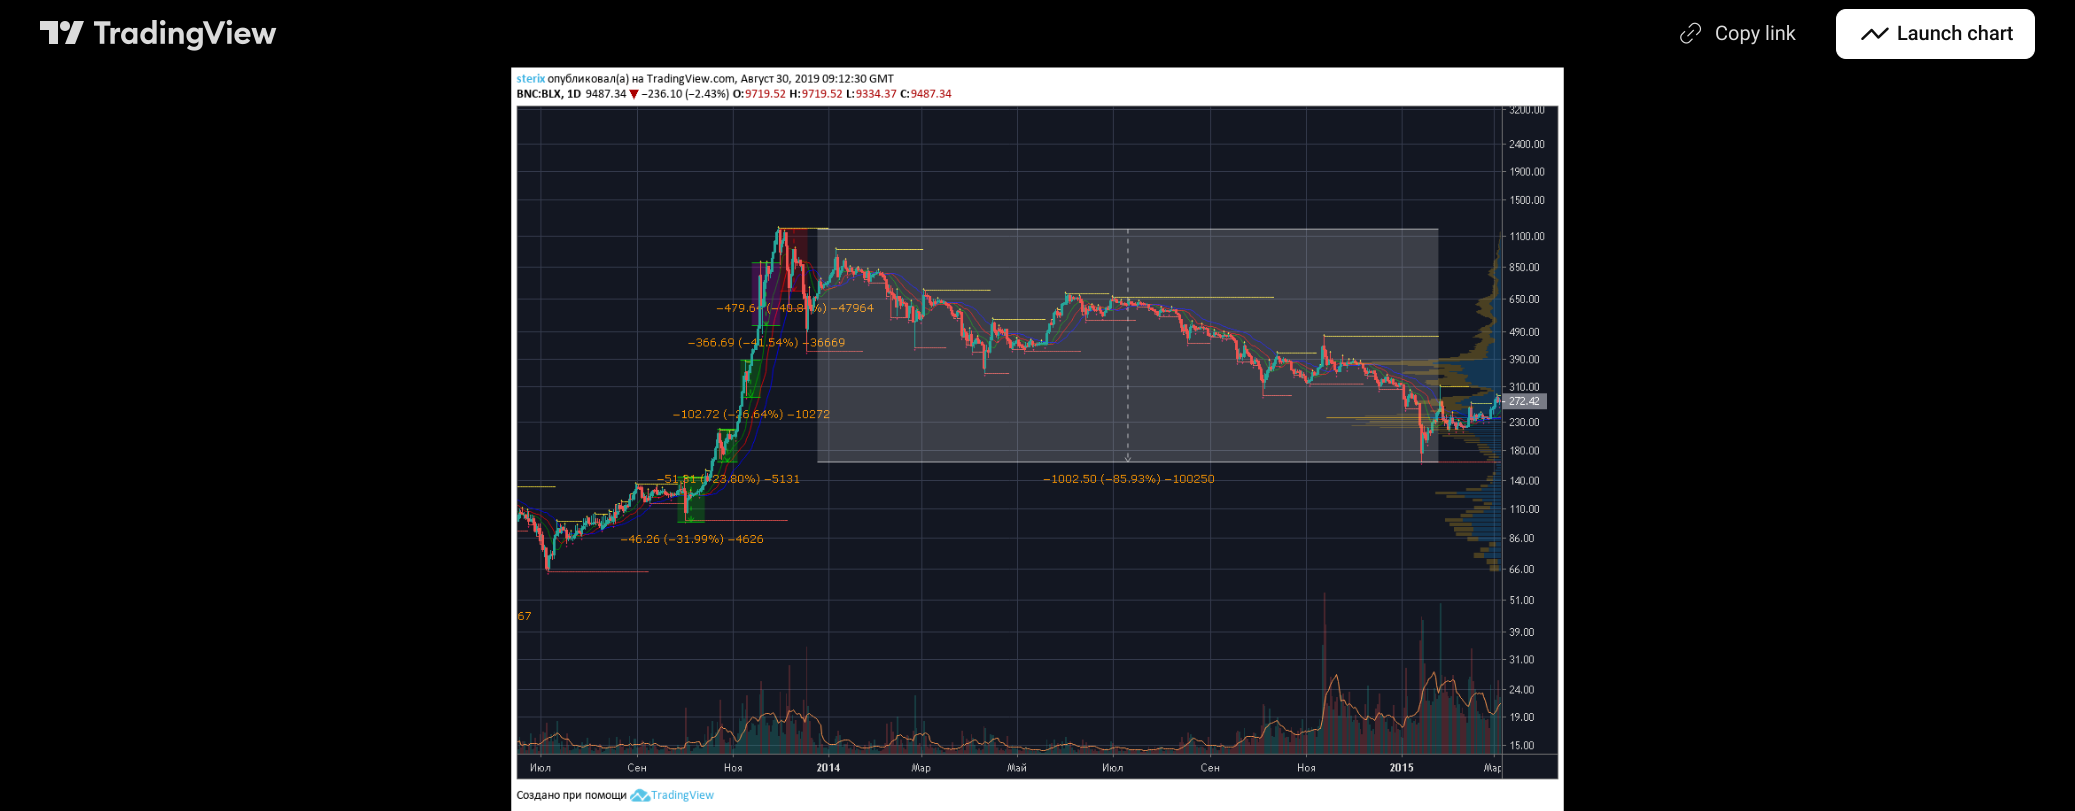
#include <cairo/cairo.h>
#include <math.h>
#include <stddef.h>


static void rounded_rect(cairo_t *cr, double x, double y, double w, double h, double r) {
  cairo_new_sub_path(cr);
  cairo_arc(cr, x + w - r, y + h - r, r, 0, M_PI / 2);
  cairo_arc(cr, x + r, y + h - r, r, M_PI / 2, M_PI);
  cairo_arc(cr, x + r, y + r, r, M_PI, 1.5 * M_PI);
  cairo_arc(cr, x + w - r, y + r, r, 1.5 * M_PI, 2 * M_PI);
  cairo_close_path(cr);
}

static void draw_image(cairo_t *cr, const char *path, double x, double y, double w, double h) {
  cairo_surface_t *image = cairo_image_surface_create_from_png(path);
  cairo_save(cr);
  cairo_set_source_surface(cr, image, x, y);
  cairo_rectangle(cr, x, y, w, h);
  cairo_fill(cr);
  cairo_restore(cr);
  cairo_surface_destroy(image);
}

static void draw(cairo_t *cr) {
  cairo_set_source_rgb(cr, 0, 0, 0);
  cairo_paint(cr);
  cairo_set_source_rgb(cr, 219 / 255.0, 219 / 255.0, 219 / 255.0);
  cairo_new_path(cr);
  cairo_move_to(cr, 58, 44);
  cairo_line_to(cr, 49, 44);
  cairo_line_to(cr, 49, 30);
  cairo_line_to(cr, 40, 30);
  cairo_line_to(cr, 40, 21);
  cairo_line_to(cr, 58, 21);
  cairo_close_path(cr);
  cairo_move_to(cr, 75, 44);
  cairo_line_to(cr, 65, 44);
  cairo_line_to(cr, 74, 21);
  cairo_line_to(cr, 84, 21);
  cairo_close_path(cr);
  cairo_fill(cr);
  cairo_arc(cr, 65, 26, 5, 0, 2 * M_PI);
  cairo_fill(cr);
  draw_image(cr, "images/1.png", 94, 19, 183, 32);
  draw_image(cr, "images/2.png", 1680, 22, 22, 22);
  cairo_set_source_rgb(cr, 1, 1, 1);
  rounded_rect(cr, 1836.5, 9.5, 198, 49, 9.5);
  cairo_fill_preserve(cr);
  cairo_set_line_width(cr, 1);
  cairo_stroke(cr);
  draw_image(cr, "images/3.png", 1861, 27, 28, 13);
  draw_image(cr, "images/4.png", 511, 67, 1053, 744);
  cairo_select_font_face(cr, "Roboto", CAIRO_FONT_SLANT_NORMAL, CAIRO_FONT_WEIGHT_NORMAL);
  cairo_set_font_size(cr, 20);
  cairo_set_source_rgb(cr, 219 / 255.0, 219 / 255.0, 219 / 255.0);
  cairo_move_to(cr, 1715, 40);
  cairo_show_text(cr, "Copy link");
  cairo_select_font_face(cr, "Roboto Medium", CAIRO_FONT_SLANT_NORMAL, CAIRO_FONT_WEIGHT_NORMAL);
  cairo_set_source_rgb(cr, 15 / 255.0, 15 / 255.0, 15 / 255.0);
  cairo_move_to(cr, 1897, 40);
  cairo_show_text(cr, "Launch chart");
}

int main(void) {
  cairo_surface_t *surface = cairo_image_surface_create(CAIRO_FORMAT_RGB24, 2075, 811);
  cairo_t *cr = cairo_create(surface);
  cairo_font_options_t *options = cairo_font_options_create();
  cairo_font_options_set_hint_metrics(options, CAIRO_HINT_METRICS_OFF);
  cairo_font_options_set_hint_style(options, CAIRO_HINT_STYLE_NONE);
  cairo_set_font_options(cr, options);
  cairo_set_miter_limit(cr, 4);
  draw(cr);
  cairo_surface_write_to_png(surface, "out.png");
  cairo_font_options_destroy(options);
  cairo_destroy(cr);
  cairo_surface_destroy(surface);
  return 0;
}
